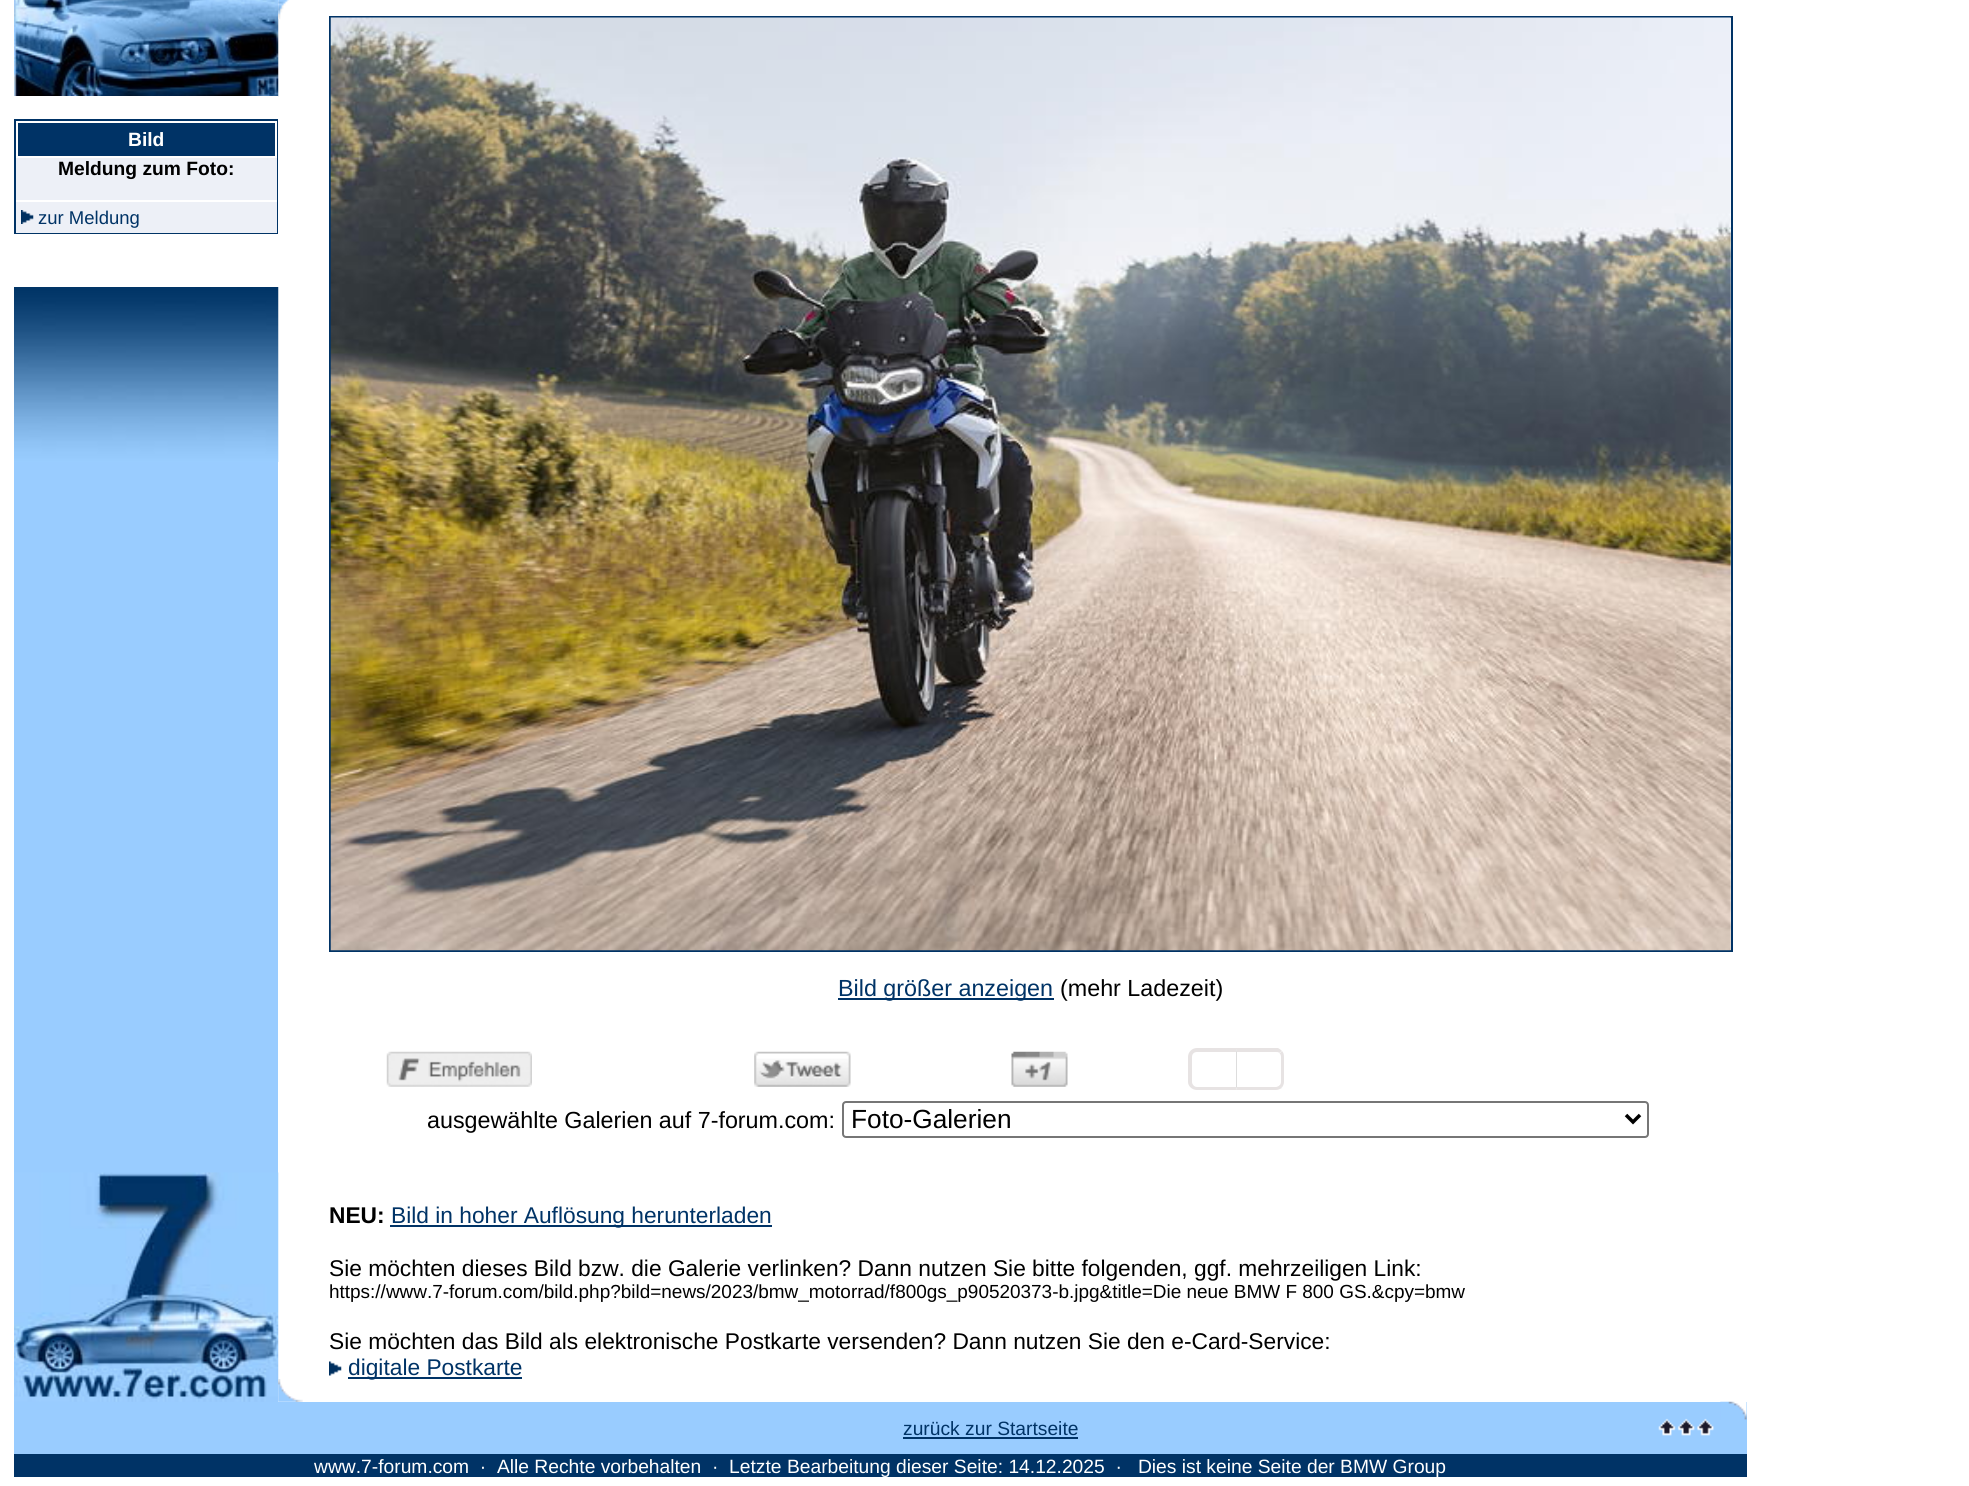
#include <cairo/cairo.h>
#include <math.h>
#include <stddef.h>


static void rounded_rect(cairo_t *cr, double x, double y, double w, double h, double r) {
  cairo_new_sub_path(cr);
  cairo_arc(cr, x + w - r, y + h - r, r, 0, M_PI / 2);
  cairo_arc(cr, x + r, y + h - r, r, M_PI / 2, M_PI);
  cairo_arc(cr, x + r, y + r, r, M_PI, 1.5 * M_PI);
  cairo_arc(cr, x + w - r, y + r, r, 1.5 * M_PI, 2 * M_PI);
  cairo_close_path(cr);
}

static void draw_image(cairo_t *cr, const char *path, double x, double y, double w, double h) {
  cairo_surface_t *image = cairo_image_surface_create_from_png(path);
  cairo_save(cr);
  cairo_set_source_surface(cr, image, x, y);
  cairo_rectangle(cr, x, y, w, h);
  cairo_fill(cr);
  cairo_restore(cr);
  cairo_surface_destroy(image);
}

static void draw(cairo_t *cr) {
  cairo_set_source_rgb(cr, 1, 1, 1);
  cairo_paint(cr);
  draw_image(cr, "images/2.png", 14, 0, 265, 97);
  draw_image(cr, "images/1.png", 278, 0, 11, 20);
  cairo_set_source_rgb(cr, 153 / 255.0, 204 / 255.0, 1);
  cairo_rectangle(cr, 14, 462, 264, 992);
  cairo_fill(cr);
  cairo_set_source_rgb(cr, 1, 1, 1);
  cairo_rectangle(cr, 14, 96, 264, 1);
  cairo_fill(cr);
  cairo_set_source_rgb(cr, 0, 51 / 255.0, 102 / 255.0);
  cairo_rectangle(cr, 14, 119, 264, 2);
  cairo_fill(cr);
  cairo_rectangle(cr, 277, 119, 1, 116);
  cairo_fill(cr);
  cairo_rectangle(cr, 14, 233, 264, 1);
  cairo_fill(cr);
  cairo_rectangle(cr, 14, 119, 2, 116);
  cairo_fill(cr);
  cairo_set_source_rgb(cr, 237 / 255.0, 240 / 255.0, 247 / 255.0);
  cairo_rectangle(cr, 16, 158, 261, 75);
  cairo_fill(cr);
  cairo_set_source_rgb(cr, 0, 51 / 255.0, 102 / 255.0);
  cairo_rectangle(cr, 18, 123, 257, 33);
  cairo_fill(cr);
  cairo_set_source_rgb(cr, 1, 1, 1);
  cairo_rectangle(cr, 16, 200, 261, 2);
  cairo_fill(cr);
  draw_image(cr, "images/3.png", 21, 210, 13, 14);
  cairo_rectangle(cr, 14, 234, 264, 1);
  cairo_fill(cr);
  draw_image(cr, "images/4.png", 14, 287, 265, 175);
  cairo_rectangle(cr, 330, 17, 1402, 934);
  cairo_set_source_rgb(cr, 0, 51 / 255.0, 102 / 255.0);
  cairo_stroke(cr);
  draw_image(cr, "images/5.png", 330, 17, 1401, 934);
  cairo_rectangle(cr, 838, 998, 216, 2);
  cairo_fill(cr);
  draw_image(cr, "images/6.png", 386, 1051, 146, 36);
  draw_image(cr, "images/7.png", 754, 1051, 97, 36);
  draw_image(cr, "images/8.png", 1011, 1051, 57, 36);
  cairo_set_source_rgb(cr, 231 / 255.0, 227 / 255.0, 227 / 255.0);
  cairo_set_fill_rule(cr, CAIRO_FILL_RULE_EVEN_ODD);
  cairo_new_path(cr);
  cairo_move_to(cr, 1197, 1048);
  cairo_line_to(cr, 1236, 1048);
  cairo_line_to(cr, 1236, 1090);
  cairo_line_to(cr, 1197, 1090);
  cairo_curve_to(cr, 1192, 1090, 1188, 1086, 1188, 1082);
  cairo_line_to(cr, 1188, 1057);
  cairo_curve_to(cr, 1188, 1052, 1192, 1048, 1197, 1048);
  cairo_close_path(cr);
  cairo_move_to(cr, 1197, 1052);
  cairo_line_to(cr, 1236, 1052);
  cairo_line_to(cr, 1236, 1087);
  cairo_line_to(cr, 1197, 1087);
  cairo_curve_to(cr, 1194, 1087, 1192, 1084, 1192, 1082);
  cairo_line_to(cr, 1192, 1057);
  cairo_curve_to(cr, 1192, 1054, 1194, 1052, 1197, 1052);
  cairo_close_path(cr);
  cairo_fill(cr);
  cairo_set_fill_rule(cr, CAIRO_FILL_RULE_WINDING);
  cairo_new_path(cr);
  cairo_move_to(cr, 1236, 1049);
  cairo_line_to(cr, 1236, 1048);
  cairo_line_to(cr, 1278, 1048);
  cairo_curve_to(cr, 1280, 1049, 1281, 1050, 1282, 1051);
  cairo_line_to(cr, 1279, 1053);
  cairo_curve_to(cr, 1279, 1052, 1277, 1052, 1276, 1052);
  cairo_line_to(cr, 1237, 1052);
  cairo_close_path(cr);
  cairo_fill(cr);
  cairo_new_path(cr);
  cairo_move_to(cr, 1282, 1051);
  cairo_curve_to(cr, 1283.5, 1052.5, 1284, 1054.5, 1284, 1057);
  cairo_line_to(cr, 1284, 1082);
  cairo_curve_to(cr, 1284, 1084, 1283, 1086, 1282, 1087.5);
  cairo_line_to(cr, 1279.5, 1085.5);
  cairo_curve_to(cr, 1280.5, 1084.5, 1281, 1083, 1281, 1082);
  cairo_line_to(cr, 1281, 1057);
  cairo_curve_to(cr, 1281, 1055.5, 1280.5, 1054, 1279.5, 1053.5);
  cairo_close_path(cr);
  cairo_fill(cr);
  cairo_new_path(cr);
  cairo_move_to(cr, 1282, 1088);
  cairo_curve_to(cr, 1280, 1089, 1278, 1090, 1276, 1090);
  cairo_line_to(cr, 1236, 1090);
  cairo_line_to(cr, 1237, 1087);
  cairo_line_to(cr, 1276, 1087);
  cairo_curve_to(cr, 1277, 1087, 1279, 1086, 1280, 1085);
  cairo_close_path(cr);
  cairo_fill(cr);
  cairo_set_source_rgb(cr, 221 / 255.0, 221 / 255.0, 221 / 255.0);
  cairo_new_path(cr);
  cairo_move_to(cr, 1237, 1052);
  cairo_line_to(cr, 1237, 1087);
  cairo_line_to(cr, 1236, 1089);
  cairo_line_to(cr, 1236, 1049);
  cairo_close_path(cr);
  cairo_fill(cr);
  draw_image(cr, "images/9.png", 14, 1172, 265, 230);
  draw_image(cr, "images/10.png", 278, 1379, 25, 23);
  rounded_rect(cr, 843, 1102, 805, 35, 3);
  cairo_set_source_rgb(cr, 118 / 255.0, 118 / 255.0, 118 / 255.0);
  cairo_stroke(cr);
  cairo_new_path(cr);
  cairo_move_to(cr, 1626, 1115);
  cairo_line_to(cr, 1633, 1122);
  cairo_line_to(cr, 1640, 1115);
  cairo_set_source_rgb(cr, 0, 0, 0);
  cairo_set_line_width(cr, 3.5);
  cairo_stroke(cr);
  cairo_set_source_rgb(cr, 0, 51 / 255.0, 102 / 255.0);
  cairo_rectangle(cr, 390, 1225, 382, 2);
  cairo_fill(cr);
  draw_image(cr, "images/11.png", 329, 1361, 13, 15);
  cairo_rectangle(cr, 348, 1377, 174, 2);
  cairo_fill(cr);
  cairo_set_source_rgb(cr, 153 / 255.0, 204 / 255.0, 1);
  cairo_rectangle(cr, 278, 1402, 1469, 52);
  cairo_fill(cr);
  draw_image(cr, "images/12.png", 1720, 1401, 27, 19);
  draw_image(cr, "images/13.png", 1658, 1418, 56, 18);
  cairo_set_source_rgb(cr, 0, 51 / 255.0, 102 / 255.0);
  cairo_rectangle(cr, 903, 1437, 175, 2);
  cairo_fill(cr);
  cairo_rectangle(cr, 14, 1454, 1733, 23);
  cairo_fill(cr);
  cairo_select_font_face(cr, "Liberation Sans", CAIRO_FONT_SLANT_NORMAL, CAIRO_FONT_WEIGHT_BOLD);
  cairo_set_font_size(cr, 19.25);
  cairo_set_source_rgb(cr, 1, 1, 1);
  cairo_move_to(cr, 128, 146);
  cairo_show_text(cr, "Bild");
  cairo_set_source_rgb(cr, 0, 0, 0);
  cairo_move_to(cr, 58, 175);
  cairo_show_text(cr, "Meldung zum Foto:");
  cairo_select_font_face(cr, "Liberation Sans", CAIRO_FONT_SLANT_NORMAL, CAIRO_FONT_WEIGHT_NORMAL);
  cairo_set_font_size(cr, 18.5);
  cairo_set_source_rgb(cr, 0, 51 / 255.0, 102 / 255.0);
  cairo_move_to(cr, 38, 224);
  cairo_show_text(cr, "zur Meldung");
  cairo_set_font_size(cr, 23.3);
  cairo_move_to(cr, 838, 996);
  cairo_show_text(cr, "Bild größer anzeigen");
  cairo_set_source_rgb(cr, 0, 0, 0);
  cairo_move_to(cr, 1060, 996);
  cairo_show_text(cr, "(mehr Ladezeit)");
  cairo_move_to(cr, 427, 1128);
  cairo_show_text(cr, "ausgewählte Galerien auf 7-forum.com:");
  cairo_set_font_size(cr, 26.25);
  cairo_move_to(cr, 851, 1128);
  cairo_show_text(cr, "Foto-Galerien");
  cairo_select_font_face(cr, "Liberation Sans", CAIRO_FONT_SLANT_NORMAL, CAIRO_FONT_WEIGHT_BOLD);
  cairo_set_font_size(cr, 22.75);
  cairo_move_to(cr, 329, 1223);
  cairo_show_text(cr, "NEU:");
  cairo_select_font_face(cr, "Liberation Sans", CAIRO_FONT_SLANT_NORMAL, CAIRO_FONT_WEIGHT_NORMAL);
  cairo_set_source_rgb(cr, 0, 51 / 255.0, 102 / 255.0);
  cairo_move_to(cr, 391, 1223);
  cairo_show_text(cr, "Bild in hoher Auflösung herunterladen");
  cairo_set_source_rgb(cr, 0, 0, 0);
  cairo_move_to(cr, 329, 1276);
  cairo_show_text(cr, "Sie möchten dieses Bild bzw. die Galerie verlinken? Dann nutzen Sie bitte folgenden, ggf. mehrzeiligen Link:");
  cairo_set_font_size(cr, 18.95);
  cairo_move_to(cr, 329, 1298);
  cairo_show_text(cr, "https://www.7-forum.com/bild.php?bild=news/2023/bmw_motorrad/f800gs_p90520373-b.jpg&title=Die neue BMW F 800 GS.&cpy=bmw");
  cairo_set_font_size(cr, 22.75);
  cairo_move_to(cr, 329, 1349);
  cairo_show_text(cr, "Sie möchten das Bild als elektronische Postkarte versenden? Dann nutzen Sie den e-Card-Service:");
  cairo_set_source_rgb(cr, 0, 51 / 255.0, 102 / 255.0);
  cairo_move_to(cr, 348, 1375);
  cairo_show_text(cr, "digitale Postkarte");
  cairo_set_font_size(cr, 19.25);
  cairo_move_to(cr, 903, 1435);
  cairo_show_text(cr, "zurück zur Startseite");
  cairo_set_source_rgb(cr, 1, 1, 1);
  cairo_move_to(cr, 314, 1473);
  cairo_show_text(cr, "www.7-forum.com  ·  Alle Rechte vorbehalten  ·  Letzte Bearbeitung dieser Seite: 14.12.2025  ·   Dies ist keine Seite der BMW Group");
}

int main(void) {
  cairo_surface_t *surface = cairo_image_surface_create(CAIRO_FORMAT_RGB24, 1969, 1486);
  cairo_t *cr = cairo_create(surface);
  cairo_font_options_t *options = cairo_font_options_create();
  cairo_font_options_set_hint_metrics(options, CAIRO_HINT_METRICS_OFF);
  cairo_font_options_set_hint_style(options, CAIRO_HINT_STYLE_NONE);
  cairo_set_font_options(cr, options);
  cairo_set_miter_limit(cr, 4);
  draw(cr);
  cairo_surface_write_to_png(surface, "out.png");
  cairo_font_options_destroy(options);
  cairo_destroy(cr);
  cairo_surface_destroy(surface);
  return 0;
}
